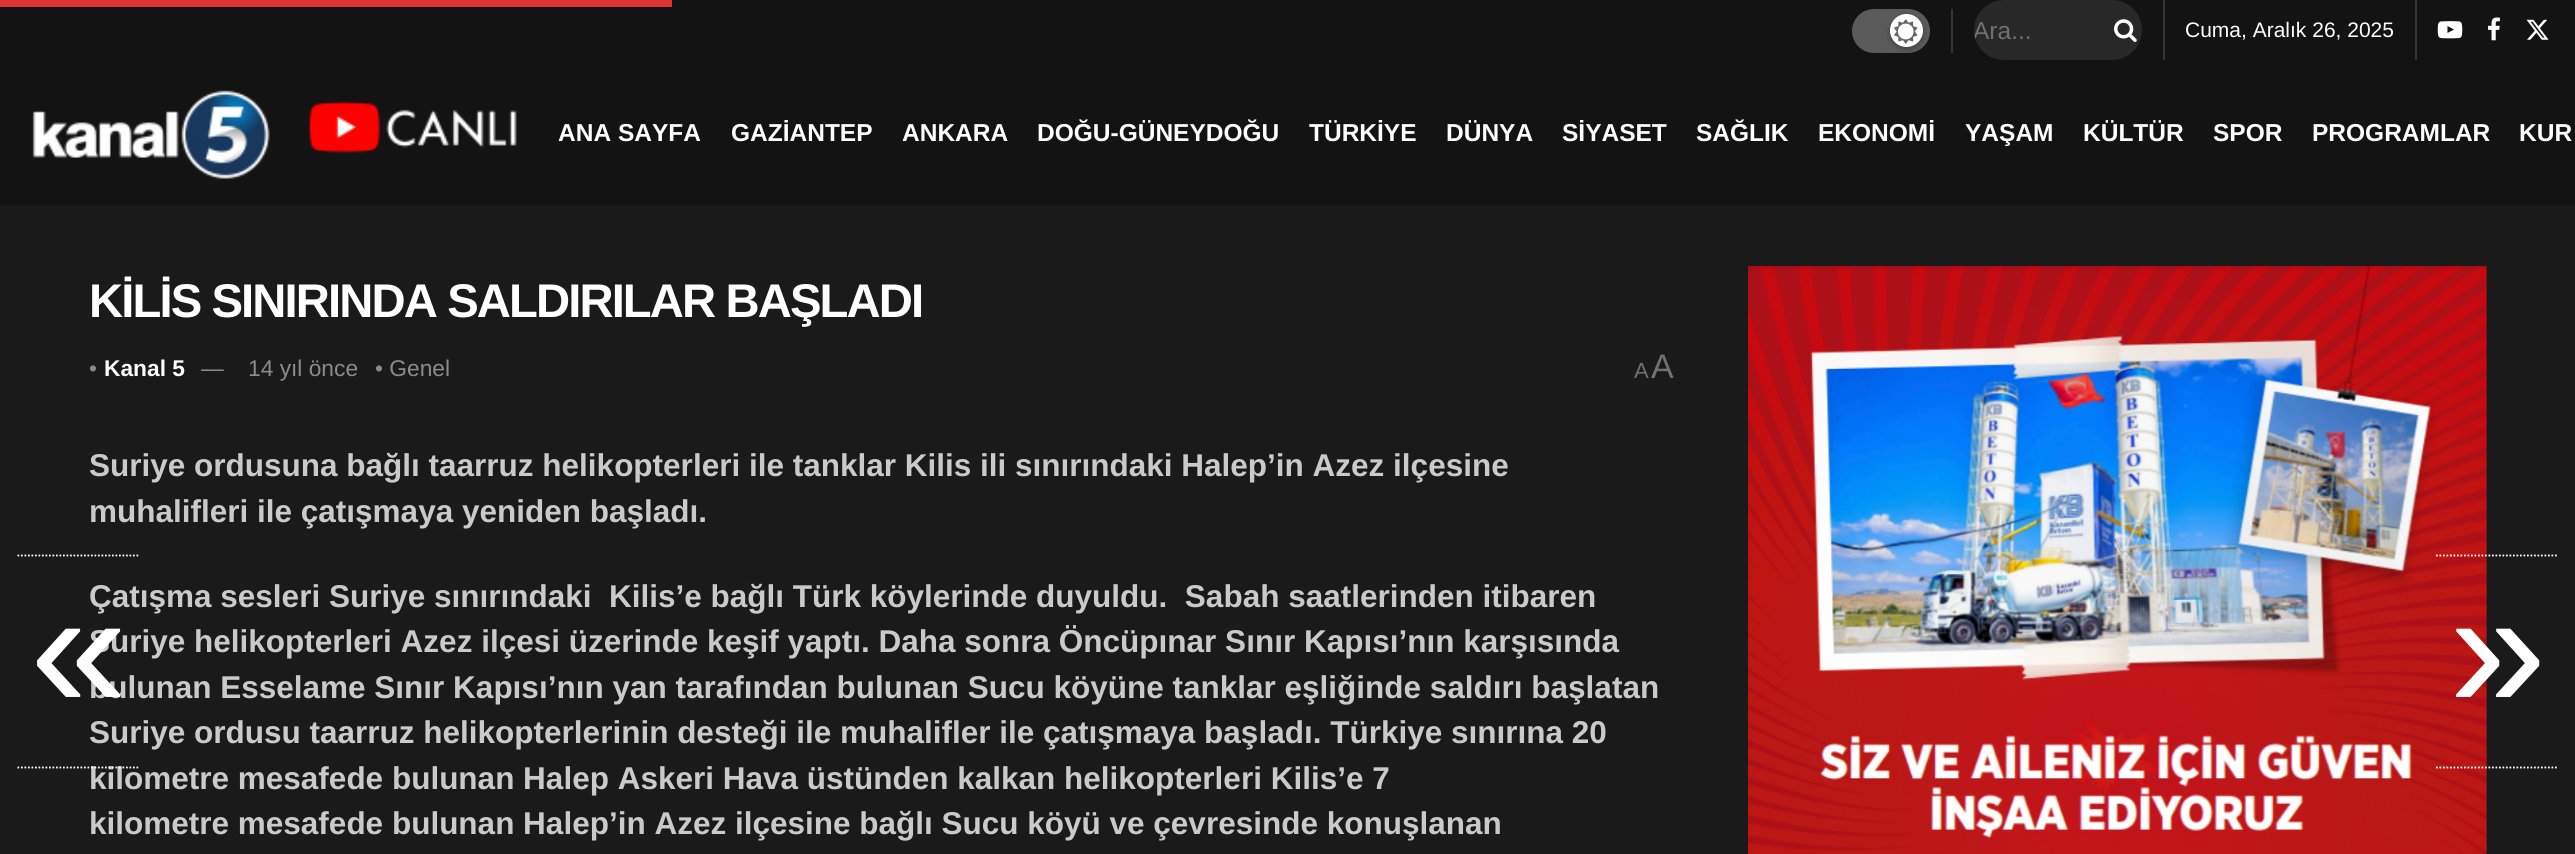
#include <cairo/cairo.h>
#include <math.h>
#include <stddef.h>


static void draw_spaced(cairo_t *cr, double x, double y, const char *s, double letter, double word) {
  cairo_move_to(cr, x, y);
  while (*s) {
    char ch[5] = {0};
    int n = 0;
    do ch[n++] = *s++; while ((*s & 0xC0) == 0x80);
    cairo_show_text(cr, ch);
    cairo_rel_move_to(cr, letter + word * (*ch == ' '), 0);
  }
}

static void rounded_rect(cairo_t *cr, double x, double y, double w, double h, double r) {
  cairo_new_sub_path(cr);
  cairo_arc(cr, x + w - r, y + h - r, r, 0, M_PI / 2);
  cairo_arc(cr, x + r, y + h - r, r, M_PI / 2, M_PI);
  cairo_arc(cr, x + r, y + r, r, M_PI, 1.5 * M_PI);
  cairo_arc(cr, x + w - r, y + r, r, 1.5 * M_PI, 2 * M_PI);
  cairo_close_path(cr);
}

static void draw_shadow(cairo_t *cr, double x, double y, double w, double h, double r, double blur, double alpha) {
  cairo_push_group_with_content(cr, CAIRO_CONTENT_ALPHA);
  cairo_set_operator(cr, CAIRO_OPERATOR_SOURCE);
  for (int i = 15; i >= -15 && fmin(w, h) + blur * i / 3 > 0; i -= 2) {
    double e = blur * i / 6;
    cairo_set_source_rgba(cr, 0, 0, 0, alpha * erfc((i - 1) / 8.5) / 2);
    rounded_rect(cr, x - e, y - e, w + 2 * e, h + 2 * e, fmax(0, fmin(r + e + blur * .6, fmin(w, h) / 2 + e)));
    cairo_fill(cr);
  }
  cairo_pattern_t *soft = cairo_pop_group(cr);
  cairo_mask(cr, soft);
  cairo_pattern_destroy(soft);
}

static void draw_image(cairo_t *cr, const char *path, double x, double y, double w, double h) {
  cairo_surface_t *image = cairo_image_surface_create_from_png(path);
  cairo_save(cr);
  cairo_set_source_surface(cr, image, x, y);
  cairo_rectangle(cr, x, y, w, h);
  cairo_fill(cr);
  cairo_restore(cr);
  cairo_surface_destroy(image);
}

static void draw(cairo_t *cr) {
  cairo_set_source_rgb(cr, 26 / 255.0, 26 / 255.0, 26 / 255.0);
  cairo_paint(cr);
  cairo_set_source_rgb(cr, 19 / 255.0, 19 / 255.0, 19 / 255.0);
  cairo_rectangle(cr, 0, 0, 2575, 205);
  cairo_fill(cr);
  cairo_set_source_rgb(cr, 221 / 255.0, 51 / 255.0, 51 / 255.0);
  cairo_rectangle(cr, 0, 0, 672, 7);
  cairo_fill(cr);
  cairo_set_source_rgb(cr, 54 / 255.0, 54 / 255.0, 54 / 255.0);
  cairo_rectangle(cr, 1951, 9, 2, 44);
  cairo_fill(cr);
  cairo_set_source_rgb(cr, 90 / 255.0, 90 / 255.0, 90 / 255.0);
  rounded_rect(cr, 1852, 9, 78, 44, 22);
  cairo_fill(cr);
  cairo_set_source_rgb(cr, 0, 0, 0);
  draw_shadow(cr, 1890, 16, 33, 33, 16.5, 2.5, 0.3);
  cairo_set_source_rgb(cr, 1, 1, 1);
  cairo_arc(cr, 1906.5, 30.5, 16.5, 0, 2 * M_PI);
  cairo_fill(cr);
  draw_image(cr, "images/1.png", 1894, 19, 24, 25);
  cairo_set_source_rgb(cr, 54 / 255.0, 54 / 255.0, 54 / 255.0);
  cairo_rectangle(cr, 2163, 0, 2, 60);
  cairo_fill(cr);
  cairo_set_source_rgb(cr, 40 / 255.0, 40 / 255.0, 40 / 255.0);
  rounded_rect(cr, 1974, 0, 168, 60, 30);
  cairo_fill(cr);
  draw_image(cr, "images/2.png", 2114, 19, 23, 23);
  cairo_set_source_rgb(cr, 54 / 255.0, 54 / 255.0, 54 / 255.0);
  cairo_rectangle(cr, 2415, 0, 2, 60);
  cairo_fill(cr);
  draw_image(cr, "images/3.png", 2437, 21, 26, 18);
  draw_image(cr, "images/4.png", 2488, 17, 12, 24);
  draw_image(cr, "images/5.png", 2526, 19, 23, 21);
  draw_image(cr, "images/6.png", 32, 90, 238, 89);
  draw_image(cr, "images/7.png", 309, 101, 208, 52);
  draw_image(cr, "images/8.png", 1748, 266, 739, 588);
  cairo_new_path(cr);
  cairo_move_to(cr, 17.5, 555.5);
  cairo_line_to(cr, 140, 555.5);
  cairo_set_source_rgb(cr, 1, 1, 1);
  cairo_set_line_width(cr, 1.8);
  cairo_set_dash(cr, (double[]){1.75, 1.75}, 2, 0);
  cairo_stroke(cr);
  cairo_new_path(cr);
  cairo_move_to(cr, 2436, 555.5);
  cairo_line_to(cr, 2558.5, 555.5);
  cairo_stroke(cr);
  cairo_new_path(cr);
  cairo_move_to(cr, 2436, 767.5);
  cairo_line_to(cr, 2558.5, 767.5);
  cairo_stroke(cr);
  cairo_save(cr);
  rounded_rect(cr, 1974, 0, 168, 60, 30);
  cairo_clip(cr);
  cairo_select_font_face(cr, "Liberation Sans", CAIRO_FONT_SLANT_NORMAL, CAIRO_FONT_WEIGHT_NORMAL);
  cairo_set_font_size(cr, 24.5);
  cairo_set_source_rgb(cr, 112 / 255.0, 112 / 255.0, 112 / 255.0);
  cairo_move_to(cr, 1973, 39);
  cairo_show_text(cr, "Ara...");
  cairo_restore(cr);
  cairo_select_font_face(cr, "Liberation Sans", CAIRO_FONT_SLANT_NORMAL, CAIRO_FONT_WEIGHT_NORMAL);
  cairo_set_font_size(cr, 21);
  cairo_move_to(cr, 2185, 37);
  cairo_show_text(cr, "Cuma, Aralık 26, 2025");
  cairo_select_font_face(cr, "Liberation Sans", CAIRO_FONT_SLANT_NORMAL, CAIRO_FONT_WEIGHT_BOLD);
  cairo_set_font_size(cr, 24.5);
  cairo_move_to(cr, 558, 141);
  cairo_show_text(cr, "ANA SAYFA");
  cairo_move_to(cr, 731, 141);
  cairo_show_text(cr, "GAZİANTEP");
  cairo_move_to(cr, 902, 141);
  cairo_show_text(cr, "ANKARA");
  cairo_move_to(cr, 1037, 141);
  cairo_show_text(cr, "DOĞU-GÜNEYDOĞU");
  cairo_move_to(cr, 1309, 141);
  cairo_show_text(cr, "TÜRKİYE");
  cairo_move_to(cr, 1446, 141);
  cairo_show_text(cr, "DÜNYA");
  cairo_move_to(cr, 1562, 141);
  cairo_show_text(cr, "SİYASET");
  cairo_move_to(cr, 1696, 141);
  cairo_show_text(cr, "SAĞLIK");
  cairo_move_to(cr, 1818, 141);
  cairo_show_text(cr, "EKONOMİ");
  cairo_move_to(cr, 1965, 141);
  cairo_show_text(cr, "YAŞAM");
  cairo_move_to(cr, 2083, 141);
  cairo_show_text(cr, "KÜLTÜR");
  cairo_move_to(cr, 2213, 141);
  cairo_show_text(cr, "SPOR");
  cairo_move_to(cr, 2312, 141);
  cairo_show_text(cr, "PROGRAMLAR");
  cairo_move_to(cr, 2519, 141);
  cairo_show_text(cr, "KUR");
  cairo_set_font_size(cr, 47.25);
  draw_spaced(cr, 89, 317, "KİLİS SINIRINDA SALDIRILAR BAŞLADI", -1.9, 0);
  cairo_select_font_face(cr, "Liberation Sans", CAIRO_FONT_SLANT_NORMAL, CAIRO_FONT_WEIGHT_NORMAL);
  cairo_set_font_size(cr, 22.75);
  cairo_set_source_rgb(cr, 139 / 255.0, 139 / 255.0, 139 / 255.0);
  cairo_move_to(cr, 89, 376);
  cairo_show_text(cr, "•");
  cairo_select_font_face(cr, "Liberation Sans", CAIRO_FONT_SLANT_NORMAL, CAIRO_FONT_WEIGHT_BOLD);
  cairo_set_source_rgb(cr, 1, 1, 1);
  cairo_move_to(cr, 104, 376);
  cairo_show_text(cr, "Kanal 5");
  cairo_select_font_face(cr, "Liberation Sans", CAIRO_FONT_SLANT_NORMAL, CAIRO_FONT_WEIGHT_NORMAL);
  cairo_set_source_rgb(cr, 139 / 255.0, 139 / 255.0, 139 / 255.0);
  cairo_move_to(cr, 201, 376);
  cairo_show_text(cr, "—");
  cairo_move_to(cr, 248, 376);
  cairo_show_text(cr, "14 yıl önce");
  cairo_move_to(cr, 375, 376);
  cairo_show_text(cr, "• Genel");
  cairo_set_font_size(cr, 22);
  cairo_set_source_rgb(cr, 112 / 255.0, 112 / 255.0, 112 / 255.0);
  cairo_move_to(cr, 1634, 378);
  cairo_show_text(cr, "A");
  cairo_set_font_size(cr, 34);
  cairo_move_to(cr, 1651, 378);
  cairo_show_text(cr, "A");
  cairo_select_font_face(cr, "Liberation Sans", CAIRO_FONT_SLANT_NORMAL, CAIRO_FONT_WEIGHT_BOLD);
  cairo_set_font_size(cr, 31.5);
  cairo_set_source_rgb(cr, 202 / 255.0, 202 / 255.0, 202 / 255.0);
  cairo_move_to(cr, 89, 476);
  cairo_show_text(cr, "Suriye ordusuna bağlı taarruz helikopterleri ile tanklar Kilis ili sınırındaki Halep’in Azez ilçesine");
  cairo_move_to(cr, 89, 522);
  cairo_show_text(cr, "muhalifleri ile çatışmaya yeniden başladı.");
  cairo_move_to(cr, 89, 607);
  cairo_show_text(cr, "Çatışma sesleri Suriye sınırındaki  Kilis’e bağlı Türk köylerinde duyuldu.  Sabah saatlerinden itibaren");
  cairo_move_to(cr, 89, 652);
  cairo_show_text(cr, "Suriye helikopterleri Azez ilçesi üzerinde keşif yaptı. Daha sonra Öncüpınar Sınır Kapısı’nın karşısında");
  cairo_move_to(cr, 89, 698);
  cairo_show_text(cr, "bulunan Esselame Sınır Kapısı’nın yan tarafından bulunan Sucu köyüne tanklar eşliğinde saldırı başlatan");
  cairo_move_to(cr, 89, 743);
  cairo_show_text(cr, "Suriye ordusu taarruz helikopterlerinin desteği ile muhalifler ile çatışmaya başladı. Türkiye sınırına 20");
  cairo_move_to(cr, 89, 789);
  cairo_show_text(cr, "kilometre mesafede bulunan Halep Askeri Hava üstünden kalkan helikopterleri Kilis’e 7");
  cairo_move_to(cr, 89, 834);
  cairo_show_text(cr, "kilometre mesafede bulunan Halep’in Azez ilçesine bağlı Sucu köyü ve çevresinde konuşlanan");
  cairo_new_path(cr);
  cairo_move_to(cr, 17.5, 767.5);
  cairo_line_to(cr, 140, 767.5);
  cairo_set_source_rgb(cr, 1, 1, 1);
  cairo_stroke(cr);
  cairo_select_font_face(cr, "Liberation Sans", CAIRO_FONT_SLANT_NORMAL, CAIRO_FONT_WEIGHT_NORMAL);
  cairo_set_font_size(cr, 175);
  cairo_move_to(cr, 30, 709);
  cairo_show_text(cr, "«");
  cairo_move_to(cr, 2449, 709);
  cairo_show_text(cr, "»");
}

int main(void) {
  cairo_surface_t *surface = cairo_image_surface_create(CAIRO_FORMAT_RGB24, 2575, 854);
  cairo_t *cr = cairo_create(surface);
  cairo_font_options_t *options = cairo_font_options_create();
  cairo_font_options_set_hint_metrics(options, CAIRO_HINT_METRICS_OFF);
  cairo_font_options_set_hint_style(options, CAIRO_HINT_STYLE_NONE);
  cairo_set_font_options(cr, options);
  cairo_set_miter_limit(cr, 4);
  draw(cr);
  cairo_surface_write_to_png(surface, "out.png");
  cairo_font_options_destroy(options);
  cairo_destroy(cr);
  cairo_surface_destroy(surface);
  return 0;
}
